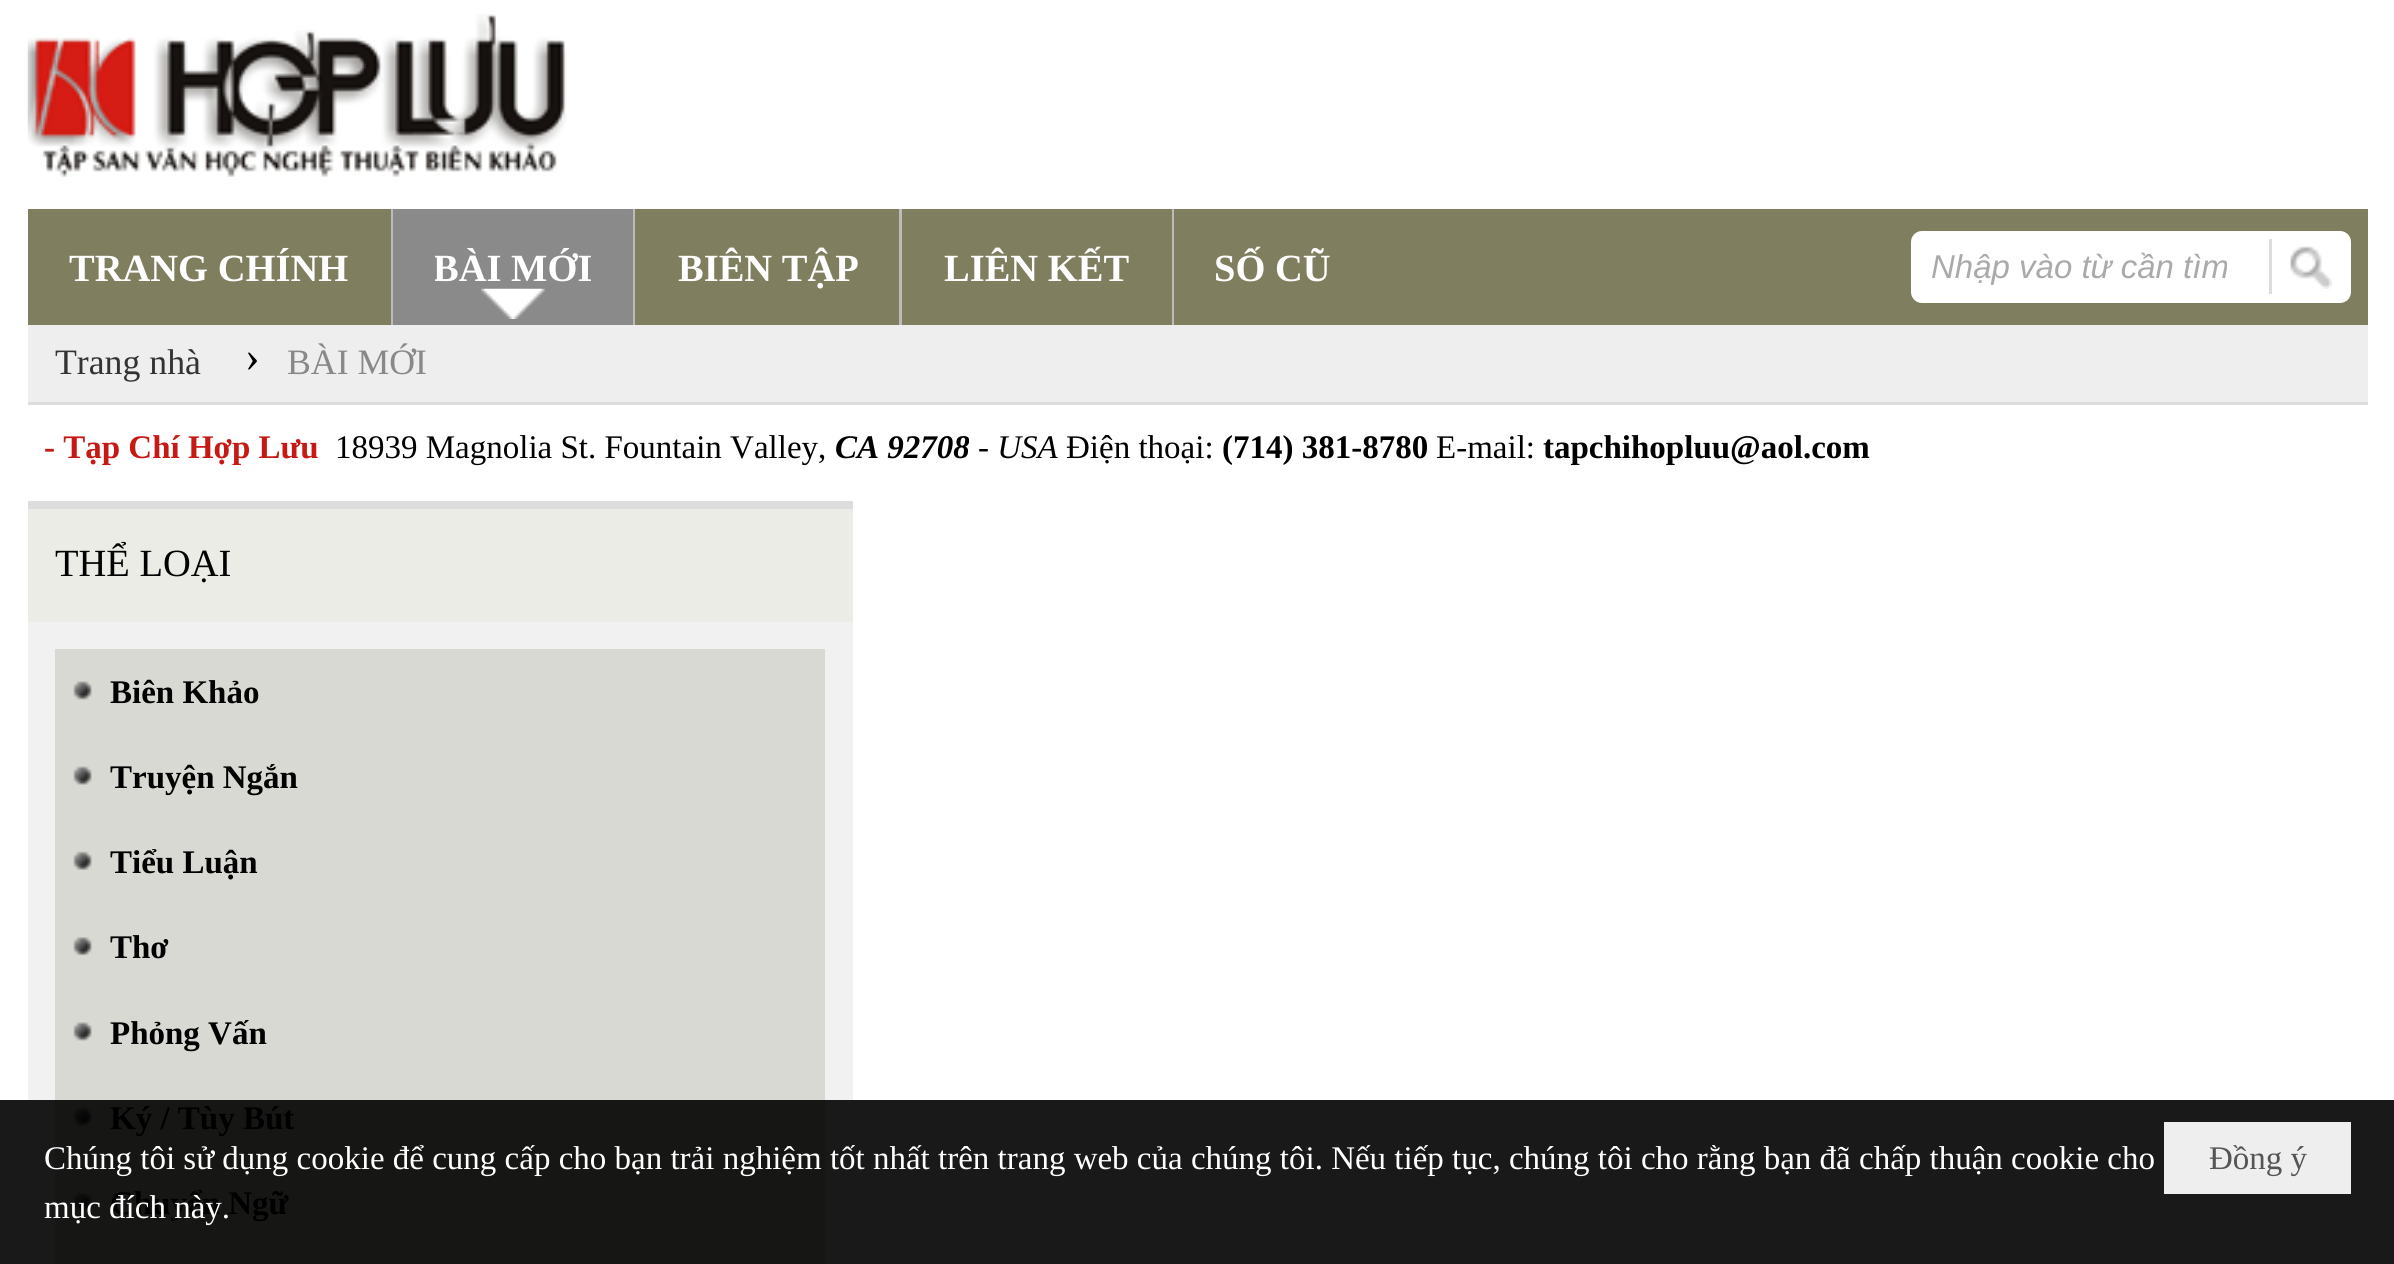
#include <cairo/cairo.h>
#include <math.h>
#include <stddef.h>


static void rounded_rect(cairo_t *cr, double x, double y, double w, double h, double r) {
  cairo_new_sub_path(cr);
  cairo_arc(cr, x + w - r, y + h - r, r, 0, M_PI / 2);
  cairo_arc(cr, x + r, y + h - r, r, M_PI / 2, M_PI);
  cairo_arc(cr, x + r, y + r, r, M_PI, 1.5 * M_PI);
  cairo_arc(cr, x + w - r, y + r, r, 1.5 * M_PI, 2 * M_PI);
  cairo_close_path(cr);
}

static void draw_image(cairo_t *cr, const char *path, double x, double y, double w, double h) {
  cairo_surface_t *image = cairo_image_surface_create_from_png(path);
  cairo_save(cr);
  cairo_set_source_surface(cr, image, x, y);
  cairo_rectangle(cr, x, y, w, h);
  cairo_fill(cr);
  cairo_restore(cr);
  cairo_surface_destroy(image);
}

static void draw(cairo_t *cr) {
  cairo_set_source_rgb(cr, 1, 1, 1);
  cairo_paint(cr);
  cairo_set_source_rgb(cr, 25 / 255.0, 25 / 255.0, 25 / 255.0);
  cairo_rectangle(cr, 0, 1100, 2394, 164);
  cairo_fill(cr);
  draw_image(cr, "images/1.png", 27, 14, 540, 163);
  cairo_set_source_rgb(cr, 127 / 255.0, 126 / 255.0, 95 / 255.0);
  cairo_rectangle(cr, 28, 209, 2340, 116);
  cairo_fill(cr);
  cairo_set_source_rgb(cr, 187 / 255.0, 187 / 255.0, 187 / 255.0);
  cairo_rectangle(cr, 391, 209, 2, 116);
  cairo_fill(cr);
  cairo_rectangle(cr, 633, 209, 2, 116);
  cairo_fill(cr);
  cairo_set_source_rgb(cr, 138 / 255.0, 138 / 255.0, 138 / 255.0);
  cairo_rectangle(cr, 393, 209, 240, 116);
  cairo_fill(cr);
  draw_image(cr, "images/2.png", 481, 288, 64, 31);
  cairo_set_source_rgb(cr, 187 / 255.0, 187 / 255.0, 187 / 255.0);
  cairo_rectangle(cr, 899, 209, 3, 116);
  cairo_fill(cr);
  cairo_rectangle(cr, 1172, 209, 2, 116);
  cairo_fill(cr);
  cairo_set_source_rgb(cr, 1, 1, 1);
  rounded_rect(cr, 1912.5, 232.5, 437, 69, 9.5);
  cairo_fill_preserve(cr);
  cairo_set_line_width(cr, 3);
  cairo_stroke(cr);
  draw_image(cr, "images/3.png", 2290, 246, 42, 43);
  cairo_set_source_rgb(cr, 221 / 255.0, 221 / 255.0, 221 / 255.0);
  cairo_rectangle(cr, 2269, 239, 3, 55);
  cairo_fill(cr);
  cairo_rectangle(cr, 28, 402, 2340, 3);
  cairo_fill(cr);
  cairo_set_source_rgb(cr, 238 / 255.0, 238 / 255.0, 238 / 255.0);
  cairo_rectangle(cr, 28, 325, 2340, 77);
  cairo_fill(cr);
  cairo_set_source_rgb(cr, 236 / 255.0, 236 / 255.0, 230 / 255.0);
  cairo_rectangle(cr, 28, 509, 825, 113);
  cairo_fill(cr);
  cairo_set_source_rgb(cr, 221 / 255.0, 221 / 255.0, 221 / 255.0);
  cairo_rectangle(cr, 28, 501, 825, 8);
  cairo_fill(cr);
  cairo_set_source_rgb(cr, 241 / 255.0, 241 / 255.0, 241 / 255.0);
  cairo_rectangle(cr, 28, 622, 825, 478);
  cairo_fill(cr);
  cairo_set_source_rgb(cr, 216 / 255.0, 217 / 255.0, 211 / 255.0);
  cairo_rectangle(cr, 55, 649, 770, 451);
  cairo_fill(cr);
  draw_image(cr, "images/4.png", 73, 681, 19, 19);
  draw_image(cr, "images/5.png", 73, 766, 19, 19);
  draw_image(cr, "images/6.png", 73, 851, 19, 19);
  draw_image(cr, "images/7.png", 73, 937, 19, 19);
  draw_image(cr, "images/4.png", 73, 1022, 19, 19);
  cairo_set_source_rgb(cr, 22 / 255.0, 22 / 255.0, 21 / 255.0);
  cairo_rectangle(cr, 55, 1100, 770, 164);
  cairo_fill(cr);
  draw_image(cr, "images/8.png", 73, 1107, 19, 19);
  draw_image(cr, "images/9.png", 73, 1192, 19, 19);
  cairo_set_source_rgb(cr, 238 / 255.0, 238 / 255.0, 238 / 255.0);
  cairo_rectangle(cr, 2164, 1122, 187, 72);
  cairo_fill(cr);
  cairo_select_font_face(cr, "Liberation Serif", CAIRO_FONT_SLANT_NORMAL, CAIRO_FONT_WEIGHT_BOLD);
  cairo_set_font_size(cr, 38.5);
  cairo_set_source_rgb(cr, 1, 1, 1);
  cairo_move_to(cr, 69, 281);
  cairo_show_text(cr, "TRANG CHÍNH");
  cairo_save(cr);
  cairo_rectangle(cr, 435, 234, 156, 63);
  cairo_clip(cr);
  cairo_move_to(cr, 433, 281);
  cairo_show_text(cr, "BÀI MỚI");
  cairo_restore(cr);
  cairo_move_to(cr, 678, 281);
  cairo_show_text(cr, "BIÊN TẬP");
  cairo_move_to(cr, 944, 281);
  cairo_show_text(cr, "LIÊN KẾT");
  cairo_move_to(cr, 1214, 281);
  cairo_show_text(cr, "SỐ CŨ");
  cairo_select_font_face(cr, "Liberation Sans", CAIRO_FONT_SLANT_ITALIC, CAIRO_FONT_WEIGHT_NORMAL);
  cairo_set_font_size(cr, 33);
  cairo_set_source_rgb(cr, 170 / 255.0, 170 / 255.0, 170 / 255.0);
  cairo_move_to(cr, 1931, 278);
  cairo_show_text(cr, "Nhập vào từ cần tìm");
  cairo_select_font_face(cr, "Liberation Serif", CAIRO_FONT_SLANT_NORMAL, CAIRO_FONT_WEIGHT_NORMAL);
  cairo_set_font_size(cr, 35.75);
  cairo_set_source_rgb(cr, 51 / 255.0, 51 / 255.0, 51 / 255.0);
  cairo_move_to(cr, 55, 374);
  cairo_show_text(cr, "Trang nhà");
  cairo_set_font_size(cr, 44);
  cairo_set_source_rgb(cr, 0, 0, 0);
  cairo_move_to(cr, 245, 371);
  cairo_show_text(cr, "›");
  cairo_set_font_size(cr, 35.75);
  cairo_set_source_rgb(cr, 136 / 255.0, 136 / 255.0, 136 / 255.0);
  cairo_move_to(cr, 287, 374);
  cairo_show_text(cr, "BÀI MỚI");
  cairo_select_font_face(cr, "Liberation Serif", CAIRO_FONT_SLANT_NORMAL, CAIRO_FONT_WEIGHT_BOLD);
  cairo_set_font_size(cr, 33);
  cairo_set_source_rgb(cr, 199 / 255.0, 25 / 255.0, 19 / 255.0);
  cairo_move_to(cr, 44, 458);
  cairo_show_text(cr, "- Tạp Chí Hợp Lưu");
  cairo_select_font_face(cr, "Liberation Serif", CAIRO_FONT_SLANT_NORMAL, CAIRO_FONT_WEIGHT_NORMAL);
  cairo_set_source_rgb(cr, 0, 0, 0);
  cairo_move_to(cr, 335, 458);
  cairo_show_text(cr, "18939 Magnolia St. Fountain Valley,");
  cairo_select_font_face(cr, "Liberation Serif", CAIRO_FONT_SLANT_ITALIC, CAIRO_FONT_WEIGHT_BOLD);
  cairo_move_to(cr, 835, 458);
  cairo_show_text(cr, "CA 92708");
  cairo_select_font_face(cr, "Liberation Serif", CAIRO_FONT_SLANT_ITALIC, CAIRO_FONT_WEIGHT_NORMAL);
  cairo_move_to(cr, 978, 458);
  cairo_show_text(cr, "- USA");
  cairo_select_font_face(cr, "Liberation Serif", CAIRO_FONT_SLANT_NORMAL, CAIRO_FONT_WEIGHT_NORMAL);
  cairo_move_to(cr, 1066, 458);
  cairo_show_text(cr, "Điện thoại:");
  cairo_select_font_face(cr, "Liberation Serif", CAIRO_FONT_SLANT_NORMAL, CAIRO_FONT_WEIGHT_BOLD);
  cairo_move_to(cr, 1222, 458);
  cairo_show_text(cr, "(714) 381-8780");
  cairo_select_font_face(cr, "Liberation Serif", CAIRO_FONT_SLANT_NORMAL, CAIRO_FONT_WEIGHT_NORMAL);
  cairo_move_to(cr, 1436, 458);
  cairo_show_text(cr, "E-mail:");
  cairo_select_font_face(cr, "Liberation Serif", CAIRO_FONT_SLANT_NORMAL, CAIRO_FONT_WEIGHT_BOLD);
  cairo_move_to(cr, 1543, 458);
  cairo_show_text(cr, "tapchihopluu@aol.com");
  cairo_select_font_face(cr, "Liberation Serif", CAIRO_FONT_SLANT_NORMAL, CAIRO_FONT_WEIGHT_NORMAL);
  cairo_set_font_size(cr, 38.5);
  cairo_move_to(cr, 55, 576);
  cairo_show_text(cr, "THỂ LOẠI");
  cairo_select_font_face(cr, "Liberation Serif", CAIRO_FONT_SLANT_NORMAL, CAIRO_FONT_WEIGHT_BOLD);
  cairo_set_font_size(cr, 33);
  cairo_move_to(cr, 110, 703);
  cairo_show_text(cr, "Biên Khảo");
  cairo_move_to(cr, 110, 788);
  cairo_show_text(cr, "Truyện Ngắn");
  cairo_move_to(cr, 110, 873);
  cairo_show_text(cr, "Tiểu Luận");
  cairo_move_to(cr, 110, 958);
  cairo_show_text(cr, "Thơ");
  cairo_move_to(cr, 110, 1044);
  cairo_show_text(cr, "Phỏng Vấn");
  cairo_move_to(cr, 110, 1129);
  cairo_show_text(cr, "Ký / Tùy Bút");
  cairo_move_to(cr, 110, 1214);
  cairo_show_text(cr, "Chuyển Ngữ");
  cairo_select_font_face(cr, "Liberation Serif", CAIRO_FONT_SLANT_NORMAL, CAIRO_FONT_WEIGHT_NORMAL);
  cairo_set_source_rgb(cr, 1, 1, 1);
  cairo_move_to(cr, 44, 1169);
  cairo_show_text(cr, "Chúng tôi sử dụng cookie để cung cấp cho bạn trải nghiệm tốt nhất trên trang web của chúng tôi. Nếu tiếp tục, chúng tôi cho rằng bạn đã chấp thuận cookie cho");
  cairo_move_to(cr, 44, 1218);
  cairo_show_text(cr, "mục đích này.");
  cairo_set_source_rgb(cr, 85 / 255.0, 85 / 255.0, 85 / 255.0);
  cairo_move_to(cr, 2209, 1169);
  cairo_show_text(cr, "Đồng ý");
}

int main(void) {
  cairo_surface_t *surface = cairo_image_surface_create(CAIRO_FORMAT_RGB24, 2394, 1264);
  cairo_t *cr = cairo_create(surface);
  cairo_font_options_t *options = cairo_font_options_create();
  cairo_font_options_set_hint_metrics(options, CAIRO_HINT_METRICS_OFF);
  cairo_font_options_set_hint_style(options, CAIRO_HINT_STYLE_NONE);
  cairo_set_font_options(cr, options);
  cairo_set_miter_limit(cr, 4);
  draw(cr);
  cairo_surface_write_to_png(surface, "out.png");
  cairo_font_options_destroy(options);
  cairo_destroy(cr);
  cairo_surface_destroy(surface);
  return 0;
}
